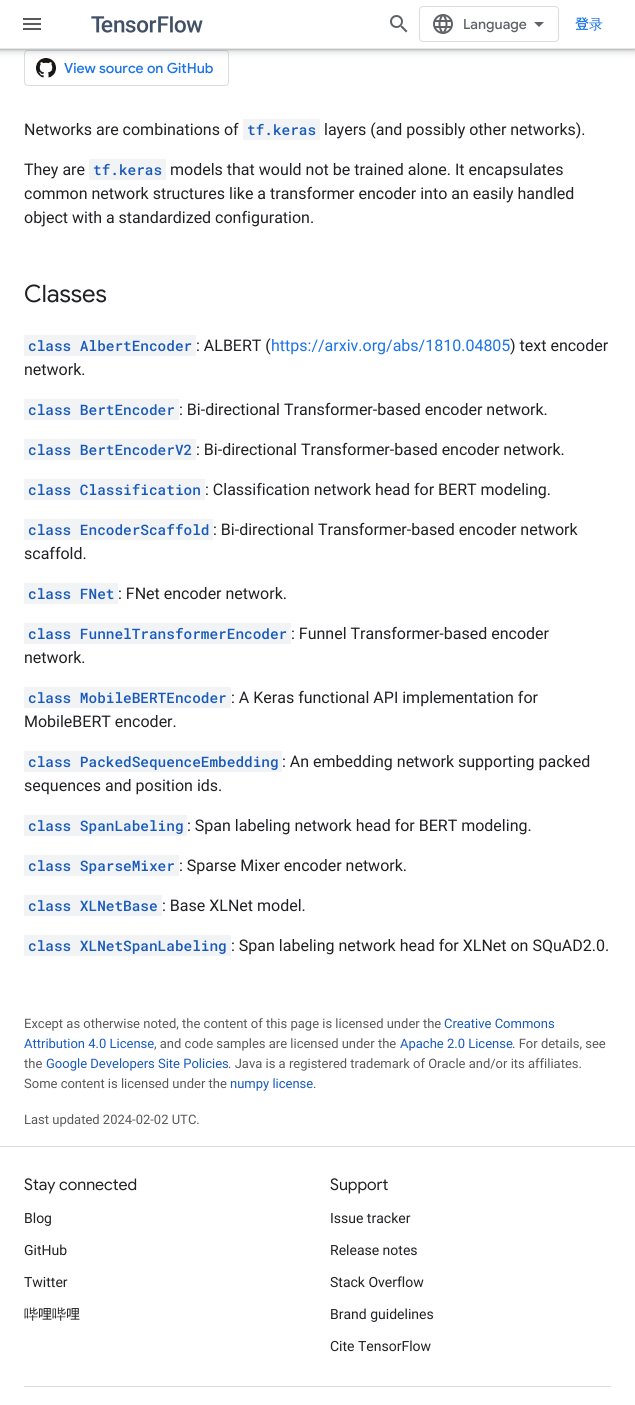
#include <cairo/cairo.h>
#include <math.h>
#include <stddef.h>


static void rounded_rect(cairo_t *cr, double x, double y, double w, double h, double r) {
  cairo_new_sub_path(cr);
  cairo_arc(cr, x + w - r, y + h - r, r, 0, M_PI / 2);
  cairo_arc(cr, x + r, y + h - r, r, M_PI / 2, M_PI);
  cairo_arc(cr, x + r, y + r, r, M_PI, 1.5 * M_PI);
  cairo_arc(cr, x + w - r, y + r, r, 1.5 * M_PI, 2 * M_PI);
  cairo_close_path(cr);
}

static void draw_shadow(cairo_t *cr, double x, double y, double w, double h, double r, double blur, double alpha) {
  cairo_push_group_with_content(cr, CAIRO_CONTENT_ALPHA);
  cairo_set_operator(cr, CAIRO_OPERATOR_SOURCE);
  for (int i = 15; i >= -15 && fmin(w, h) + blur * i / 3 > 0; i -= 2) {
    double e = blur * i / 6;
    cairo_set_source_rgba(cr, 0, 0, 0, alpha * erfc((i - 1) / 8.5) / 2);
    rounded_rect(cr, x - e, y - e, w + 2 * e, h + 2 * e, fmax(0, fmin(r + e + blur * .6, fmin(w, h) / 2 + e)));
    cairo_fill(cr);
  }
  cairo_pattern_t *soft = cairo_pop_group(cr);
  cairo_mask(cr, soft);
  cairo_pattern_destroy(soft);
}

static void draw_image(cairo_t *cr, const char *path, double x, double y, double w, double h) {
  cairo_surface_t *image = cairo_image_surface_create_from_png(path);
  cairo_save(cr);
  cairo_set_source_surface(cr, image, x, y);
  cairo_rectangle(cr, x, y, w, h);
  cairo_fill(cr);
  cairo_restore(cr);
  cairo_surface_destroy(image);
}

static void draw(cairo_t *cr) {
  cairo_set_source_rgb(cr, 1, 1, 1);
  cairo_paint(cr);
  rounded_rect(cr, 24.5, 50.5, 204, 35, 3.5);
  cairo_set_source_rgb(cr, 218 / 255.0, 220 / 255.0, 224 / 255.0);
  cairo_set_line_width(cr, 1);
  cairo_stroke(cr);
  draw_image(cr, "images/5.png", 36, 58, 20, 20);
  cairo_set_source_rgb(cr, 60 / 255.0, 64 / 255.0, 67 / 255.0);
  draw_shadow(cr, -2, -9, 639, 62, 0, 3, 0.15);
  draw_shadow(cr, 0, -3, 635, 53, 0, 1, 0.3);
  cairo_set_source_rgb(cr, 1, 1, 1);
  cairo_rectangle(cr, 0, 0, 635, 48);
  cairo_fill(cr);
  cairo_set_source_rgb(cr, 230 / 255.0, 230 / 255.0, 230 / 255.0);
  cairo_rectangle(cr, 0, 48, 635, 1);
  cairo_fill(cr);
  draw_image(cr, "images/1.png", 23, 18, 18, 12);
  draw_image(cr, "images/2.png", 91, 16, 112, 17);
  draw_image(cr, "images/3.png", 390, 15, 18, 18);
  rounded_rect(cr, 419.5, 6.5, 139, 35, 3.5);
  cairo_set_source_rgb(cr, 218 / 255.0, 220 / 255.0, 224 / 255.0);
  cairo_stroke(cr);
  draw_image(cr, "images/4.png", 433, 14, 20, 20);
  cairo_set_source_rgb(cr, 95 / 255.0, 99 / 255.0, 104 / 255.0);
  cairo_new_path(cr);
  cairo_move_to(cr, 539, 27);
  cairo_line_to(cr, 534, 22);
  cairo_line_to(cr, 544, 22);
  cairo_close_path(cr);
  cairo_fill(cr);
  cairo_set_source_rgb(cr, 241 / 255.0, 243 / 255.0, 244 / 255.0);
  cairo_rectangle(cr, 243, 119, 77, 21);
  cairo_fill(cr);
  cairo_rectangle(cr, 89, 159, 77, 21);
  cairo_fill(cr);
  cairo_rectangle(cr, 24, 335, 172, 21);
  cairo_fill(cr);
  cairo_rectangle(cr, 24, 399, 155, 21);
  cairo_fill(cr);
  cairo_rectangle(cr, 24, 439, 172, 21);
  cairo_fill(cr);
  cairo_rectangle(cr, 24, 479, 181, 21);
  cairo_fill(cr);
  cairo_rectangle(cr, 24, 519, 189, 21);
  cairo_fill(cr);
  cairo_rectangle(cr, 24, 583, 94, 21);
  cairo_fill(cr);
  cairo_rectangle(cr, 24, 623, 267, 21);
  cairo_fill(cr);
  cairo_rectangle(cr, 24, 687, 207, 21);
  cairo_fill(cr);
  cairo_rectangle(cr, 24, 751, 258, 21);
  cairo_fill(cr);
  cairo_rectangle(cr, 24, 815, 163, 21);
  cairo_fill(cr);
  cairo_rectangle(cr, 24, 855, 155, 21);
  cairo_fill(cr);
  cairo_rectangle(cr, 24, 895, 138, 21);
  cairo_fill(cr);
  cairo_rectangle(cr, 24, 935, 207, 21);
  cairo_fill(cr);
  cairo_set_source_rgb(cr, 218 / 255.0, 220 / 255.0, 224 / 255.0);
  cairo_rectangle(cr, 0, 1146, 635, 1);
  cairo_fill(cr);
  cairo_rectangle(cr, 24, 1386, 587, 1);
  cairo_fill(cr);
  cairo_select_font_face(cr, "Google Sans Medium", CAIRO_FONT_SLANT_NORMAL, CAIRO_FONT_WEIGHT_NORMAL);
  cairo_set_font_size(cr, 14);
  cairo_set_source_rgb(cr, 95 / 255.0, 99 / 255.0, 104 / 255.0);
  cairo_move_to(cr, 463, 29);
  cairo_show_text(cr, "Language");
  cairo_select_font_face(cr, "Noto Sans JP Medium", CAIRO_FONT_SLANT_NORMAL, CAIRO_FONT_WEIGHT_NORMAL);
  cairo_set_source_rgb(cr, 26 / 255.0, 115 / 255.0, 232 / 255.0);
  cairo_move_to(cr, 575, 29);
  cairo_show_text(cr, "登");
  cairo_select_font_face(cr, "WenQuanYi Zen Hei Medium", CAIRO_FONT_SLANT_NORMAL, CAIRO_FONT_WEIGHT_NORMAL);
  cairo_move_to(cr, 589, 29);
  cairo_show_text(cr, "录");
  cairo_select_font_face(cr, "Google Sans Medium", CAIRO_FONT_SLANT_NORMAL, CAIRO_FONT_WEIGHT_NORMAL);
  cairo_move_to(cr, 64, 73);
  cairo_show_text(cr, "View source on GitHub");
  cairo_select_font_face(cr, "Roboto", CAIRO_FONT_SLANT_NORMAL, CAIRO_FONT_WEIGHT_NORMAL);
  cairo_set_font_size(cr, 16);
  cairo_set_source_rgb(cr, 32 / 255.0, 33 / 255.0, 36 / 255.0);
  cairo_move_to(cr, 24, 135);
  cairo_show_text(cr, "Networks are combinations of");
  cairo_select_font_face(cr, "Roboto Mono Medium", CAIRO_FONT_SLANT_NORMAL, CAIRO_FONT_WEIGHT_NORMAL);
  cairo_set_font_size(cr, 14.4);
  cairo_set_source_rgb(cr, 24 / 255.0, 90 / 255.0, 188 / 255.0);
  cairo_move_to(cr, 247, 135);
  cairo_show_text(cr, "tf.keras");
  cairo_select_font_face(cr, "Roboto", CAIRO_FONT_SLANT_NORMAL, CAIRO_FONT_WEIGHT_NORMAL);
  cairo_set_font_size(cr, 16);
  cairo_set_source_rgb(cr, 32 / 255.0, 33 / 255.0, 36 / 255.0);
  cairo_move_to(cr, 324, 135);
  cairo_show_text(cr, "layers (and possibly other networks).");
  cairo_move_to(cr, 24, 175);
  cairo_show_text(cr, "They are");
  cairo_select_font_face(cr, "Roboto Mono Medium", CAIRO_FONT_SLANT_NORMAL, CAIRO_FONT_WEIGHT_NORMAL);
  cairo_set_font_size(cr, 14.4);
  cairo_set_source_rgb(cr, 24 / 255.0, 90 / 255.0, 188 / 255.0);
  cairo_move_to(cr, 93, 175);
  cairo_show_text(cr, "tf.keras");
  cairo_select_font_face(cr, "Roboto", CAIRO_FONT_SLANT_NORMAL, CAIRO_FONT_WEIGHT_NORMAL);
  cairo_set_font_size(cr, 16);
  cairo_set_source_rgb(cr, 32 / 255.0, 33 / 255.0, 36 / 255.0);
  cairo_move_to(cr, 170, 175);
  cairo_show_text(cr, "models that would not be trained alone. It encapsulates");
  cairo_move_to(cr, 24, 199);
  cairo_show_text(cr, "common network structures like a transformer encoder into an easily handled");
  cairo_move_to(cr, 24, 223);
  cairo_show_text(cr, "object with a standardized configuration.");
  cairo_select_font_face(cr, "Google Sans", CAIRO_FONT_SLANT_NORMAL, CAIRO_FONT_WEIGHT_NORMAL);
  cairo_set_font_size(cr, 24);
  cairo_move_to(cr, 24, 302);
  cairo_show_text(cr, "Classes");
  cairo_select_font_face(cr, "Roboto Mono Medium", CAIRO_FONT_SLANT_NORMAL, CAIRO_FONT_WEIGHT_NORMAL);
  cairo_set_font_size(cr, 14.4);
  cairo_set_source_rgb(cr, 24 / 255.0, 90 / 255.0, 188 / 255.0);
  cairo_move_to(cr, 28, 351);
  cairo_show_text(cr, "class AlbertEncoder");
  cairo_select_font_face(cr, "Roboto", CAIRO_FONT_SLANT_NORMAL, CAIRO_FONT_WEIGHT_NORMAL);
  cairo_set_font_size(cr, 16);
  cairo_set_source_rgb(cr, 32 / 255.0, 33 / 255.0, 36 / 255.0);
  cairo_move_to(cr, 196, 351);
  cairo_show_text(cr, ": ALBERT (");
  cairo_set_source_rgb(cr, 26 / 255.0, 115 / 255.0, 232 / 255.0);
  cairo_move_to(cr, 271, 351);
  cairo_show_text(cr, "https://arxiv.org/abs/1810.04805");
  cairo_set_source_rgb(cr, 32 / 255.0, 33 / 255.0, 36 / 255.0);
  cairo_move_to(cr, 510, 351);
  cairo_show_text(cr, ") text encoder");
  cairo_move_to(cr, 24, 375);
  cairo_show_text(cr, "network.");
  cairo_select_font_face(cr, "Roboto Mono Medium", CAIRO_FONT_SLANT_NORMAL, CAIRO_FONT_WEIGHT_NORMAL);
  cairo_set_font_size(cr, 14.4);
  cairo_set_source_rgb(cr, 24 / 255.0, 90 / 255.0, 188 / 255.0);
  cairo_move_to(cr, 28, 415);
  cairo_show_text(cr, "class BertEncoder");
  cairo_select_font_face(cr, "Roboto", CAIRO_FONT_SLANT_NORMAL, CAIRO_FONT_WEIGHT_NORMAL);
  cairo_set_font_size(cr, 16);
  cairo_set_source_rgb(cr, 32 / 255.0, 33 / 255.0, 36 / 255.0);
  cairo_move_to(cr, 179, 415);
  cairo_show_text(cr, ": Bi-directional Transformer-based encoder network.");
  cairo_select_font_face(cr, "Roboto Mono Medium", CAIRO_FONT_SLANT_NORMAL, CAIRO_FONT_WEIGHT_NORMAL);
  cairo_set_font_size(cr, 14.4);
  cairo_set_source_rgb(cr, 24 / 255.0, 90 / 255.0, 188 / 255.0);
  cairo_move_to(cr, 28, 455);
  cairo_show_text(cr, "class BertEncoderV2");
  cairo_select_font_face(cr, "Roboto", CAIRO_FONT_SLANT_NORMAL, CAIRO_FONT_WEIGHT_NORMAL);
  cairo_set_font_size(cr, 16);
  cairo_set_source_rgb(cr, 32 / 255.0, 33 / 255.0, 36 / 255.0);
  cairo_move_to(cr, 196, 455);
  cairo_show_text(cr, ": Bi-directional Transformer-based encoder network.");
  cairo_select_font_face(cr, "Roboto Mono Medium", CAIRO_FONT_SLANT_NORMAL, CAIRO_FONT_WEIGHT_NORMAL);
  cairo_set_font_size(cr, 14.4);
  cairo_set_source_rgb(cr, 24 / 255.0, 90 / 255.0, 188 / 255.0);
  cairo_move_to(cr, 28, 495);
  cairo_show_text(cr, "class Classification");
  cairo_select_font_face(cr, "Roboto", CAIRO_FONT_SLANT_NORMAL, CAIRO_FONT_WEIGHT_NORMAL);
  cairo_set_font_size(cr, 16);
  cairo_set_source_rgb(cr, 32 / 255.0, 33 / 255.0, 36 / 255.0);
  cairo_move_to(cr, 205, 495);
  cairo_show_text(cr, ": Classification network head for BERT modeling.");
  cairo_select_font_face(cr, "Roboto Mono Medium", CAIRO_FONT_SLANT_NORMAL, CAIRO_FONT_WEIGHT_NORMAL);
  cairo_set_font_size(cr, 14.4);
  cairo_set_source_rgb(cr, 24 / 255.0, 90 / 255.0, 188 / 255.0);
  cairo_move_to(cr, 28, 535);
  cairo_show_text(cr, "class EncoderScaffold");
  cairo_select_font_face(cr, "Roboto", CAIRO_FONT_SLANT_NORMAL, CAIRO_FONT_WEIGHT_NORMAL);
  cairo_set_font_size(cr, 16);
  cairo_set_source_rgb(cr, 32 / 255.0, 33 / 255.0, 36 / 255.0);
  cairo_move_to(cr, 213, 535);
  cairo_show_text(cr, ": Bi-directional Transformer-based encoder network");
  cairo_move_to(cr, 24, 559);
  cairo_show_text(cr, "scaffold.");
  cairo_select_font_face(cr, "Roboto Mono Medium", CAIRO_FONT_SLANT_NORMAL, CAIRO_FONT_WEIGHT_NORMAL);
  cairo_set_font_size(cr, 14.4);
  cairo_set_source_rgb(cr, 24 / 255.0, 90 / 255.0, 188 / 255.0);
  cairo_move_to(cr, 28, 599);
  cairo_show_text(cr, "class FNet");
  cairo_select_font_face(cr, "Roboto", CAIRO_FONT_SLANT_NORMAL, CAIRO_FONT_WEIGHT_NORMAL);
  cairo_set_font_size(cr, 16);
  cairo_set_source_rgb(cr, 32 / 255.0, 33 / 255.0, 36 / 255.0);
  cairo_move_to(cr, 118, 599);
  cairo_show_text(cr, ": FNet encoder network.");
  cairo_select_font_face(cr, "Roboto Mono Medium", CAIRO_FONT_SLANT_NORMAL, CAIRO_FONT_WEIGHT_NORMAL);
  cairo_set_font_size(cr, 14.4);
  cairo_set_source_rgb(cr, 24 / 255.0, 90 / 255.0, 188 / 255.0);
  cairo_move_to(cr, 28, 639);
  cairo_show_text(cr, "class FunnelTransformerEncoder");
  cairo_select_font_face(cr, "Roboto", CAIRO_FONT_SLANT_NORMAL, CAIRO_FONT_WEIGHT_NORMAL);
  cairo_set_font_size(cr, 16);
  cairo_set_source_rgb(cr, 32 / 255.0, 33 / 255.0, 36 / 255.0);
  cairo_move_to(cr, 291, 639);
  cairo_show_text(cr, ": Funnel Transformer-based encoder");
  cairo_move_to(cr, 24, 663);
  cairo_show_text(cr, "network.");
  cairo_select_font_face(cr, "Roboto Mono Medium", CAIRO_FONT_SLANT_NORMAL, CAIRO_FONT_WEIGHT_NORMAL);
  cairo_set_font_size(cr, 14.4);
  cairo_set_source_rgb(cr, 24 / 255.0, 90 / 255.0, 188 / 255.0);
  cairo_move_to(cr, 28, 703);
  cairo_show_text(cr, "class MobileBERTEncoder");
  cairo_select_font_face(cr, "Roboto", CAIRO_FONT_SLANT_NORMAL, CAIRO_FONT_WEIGHT_NORMAL);
  cairo_set_font_size(cr, 16);
  cairo_set_source_rgb(cr, 32 / 255.0, 33 / 255.0, 36 / 255.0);
  cairo_move_to(cr, 231, 703);
  cairo_show_text(cr, ": A Keras functional API implementation for");
  cairo_move_to(cr, 24, 727);
  cairo_show_text(cr, "MobileBERT encoder.");
  cairo_select_font_face(cr, "Roboto Mono Medium", CAIRO_FONT_SLANT_NORMAL, CAIRO_FONT_WEIGHT_NORMAL);
  cairo_set_font_size(cr, 14.4);
  cairo_set_source_rgb(cr, 24 / 255.0, 90 / 255.0, 188 / 255.0);
  cairo_move_to(cr, 28, 767);
  cairo_show_text(cr, "class PackedSequenceEmbedding");
  cairo_select_font_face(cr, "Roboto", CAIRO_FONT_SLANT_NORMAL, CAIRO_FONT_WEIGHT_NORMAL);
  cairo_set_font_size(cr, 16);
  cairo_set_source_rgb(cr, 32 / 255.0, 33 / 255.0, 36 / 255.0);
  cairo_move_to(cr, 282, 767);
  cairo_show_text(cr, ": An embedding network supporting packed");
  cairo_move_to(cr, 24, 791);
  cairo_show_text(cr, "sequences and position ids.");
  cairo_select_font_face(cr, "Roboto Mono Medium", CAIRO_FONT_SLANT_NORMAL, CAIRO_FONT_WEIGHT_NORMAL);
  cairo_set_font_size(cr, 14.4);
  cairo_set_source_rgb(cr, 24 / 255.0, 90 / 255.0, 188 / 255.0);
  cairo_move_to(cr, 28, 831);
  cairo_show_text(cr, "class SpanLabeling");
  cairo_select_font_face(cr, "Roboto", CAIRO_FONT_SLANT_NORMAL, CAIRO_FONT_WEIGHT_NORMAL);
  cairo_set_font_size(cr, 16);
  cairo_set_source_rgb(cr, 32 / 255.0, 33 / 255.0, 36 / 255.0);
  cairo_move_to(cr, 187, 831);
  cairo_show_text(cr, ": Span labeling network head for BERT modeling.");
  cairo_select_font_face(cr, "Roboto Mono Medium", CAIRO_FONT_SLANT_NORMAL, CAIRO_FONT_WEIGHT_NORMAL);
  cairo_set_font_size(cr, 14.4);
  cairo_set_source_rgb(cr, 24 / 255.0, 90 / 255.0, 188 / 255.0);
  cairo_move_to(cr, 28, 871);
  cairo_show_text(cr, "class SparseMixer");
  cairo_select_font_face(cr, "Roboto", CAIRO_FONT_SLANT_NORMAL, CAIRO_FONT_WEIGHT_NORMAL);
  cairo_set_font_size(cr, 16);
  cairo_set_source_rgb(cr, 32 / 255.0, 33 / 255.0, 36 / 255.0);
  cairo_move_to(cr, 179, 871);
  cairo_show_text(cr, ": Sparse Mixer encoder network.");
  cairo_select_font_face(cr, "Roboto Mono Medium", CAIRO_FONT_SLANT_NORMAL, CAIRO_FONT_WEIGHT_NORMAL);
  cairo_set_font_size(cr, 14.4);
  cairo_set_source_rgb(cr, 24 / 255.0, 90 / 255.0, 188 / 255.0);
  cairo_move_to(cr, 28, 911);
  cairo_show_text(cr, "class XLNetBase");
  cairo_select_font_face(cr, "Roboto", CAIRO_FONT_SLANT_NORMAL, CAIRO_FONT_WEIGHT_NORMAL);
  cairo_set_font_size(cr, 16);
  cairo_set_source_rgb(cr, 32 / 255.0, 33 / 255.0, 36 / 255.0);
  cairo_move_to(cr, 162, 911);
  cairo_show_text(cr, ": Base XLNet model.");
  cairo_select_font_face(cr, "Roboto Mono Medium", CAIRO_FONT_SLANT_NORMAL, CAIRO_FONT_WEIGHT_NORMAL);
  cairo_set_font_size(cr, 14.4);
  cairo_set_source_rgb(cr, 24 / 255.0, 90 / 255.0, 188 / 255.0);
  cairo_move_to(cr, 28, 951);
  cairo_show_text(cr, "class XLNetSpanLabeling");
  cairo_select_font_face(cr, "Roboto", CAIRO_FONT_SLANT_NORMAL, CAIRO_FONT_WEIGHT_NORMAL);
  cairo_set_font_size(cr, 16);
  cairo_set_source_rgb(cr, 32 / 255.0, 33 / 255.0, 36 / 255.0);
  cairo_move_to(cr, 231, 951);
  cairo_show_text(cr, ": Span labeling network head for XLNet on SQuAD2.0.");
  cairo_set_font_size(cr, 13);
  cairo_set_source_rgb(cr, 89 / 255.0, 89 / 255.0, 89 / 255.0);
  cairo_move_to(cr, 24, 1028);
  cairo_show_text(cr, "Except as otherwise noted, the content of this page is licensed under the");
  cairo_set_source_rgb(cr, 24 / 255.0, 90 / 255.0, 188 / 255.0);
  cairo_move_to(cr, 444, 1028);
  cairo_show_text(cr, "Creative Commons");
  cairo_move_to(cr, 24, 1048);
  cairo_show_text(cr, "Attribution 4.0 License");
  cairo_set_source_rgb(cr, 89 / 255.0, 89 / 255.0, 89 / 255.0);
  cairo_move_to(cr, 154, 1048);
  cairo_show_text(cr, ", and code samples are licensed under the");
  cairo_set_source_rgb(cr, 24 / 255.0, 90 / 255.0, 188 / 255.0);
  cairo_move_to(cr, 400, 1048);
  cairo_show_text(cr, "Apache 2.0 License");
  cairo_set_source_rgb(cr, 89 / 255.0, 89 / 255.0, 89 / 255.0);
  cairo_move_to(cr, 512, 1048);
  cairo_show_text(cr, ". For details, see");
  cairo_move_to(cr, 24, 1068);
  cairo_show_text(cr, "the");
  cairo_set_source_rgb(cr, 24 / 255.0, 90 / 255.0, 188 / 255.0);
  cairo_move_to(cr, 46, 1068);
  cairo_show_text(cr, "Google Developers Site Policies");
  cairo_set_source_rgb(cr, 89 / 255.0, 89 / 255.0, 89 / 255.0);
  cairo_move_to(cr, 228, 1068);
  cairo_show_text(cr, ". Java is a registered trademark of Oracle and/or its affiliates.");
  cairo_move_to(cr, 24, 1088);
  cairo_show_text(cr, "Some content is licensed under the");
  cairo_set_source_rgb(cr, 24 / 255.0, 90 / 255.0, 188 / 255.0);
  cairo_move_to(cr, 230, 1088);
  cairo_show_text(cr, "numpy license");
  cairo_set_source_rgb(cr, 89 / 255.0, 89 / 255.0, 89 / 255.0);
  cairo_move_to(cr, 313, 1088);
  cairo_show_text(cr, ".");
  cairo_move_to(cr, 24, 1124);
  cairo_show_text(cr, "Last updated 2024-02-02 UTC.");
  cairo_select_font_face(cr, "Google Sans", CAIRO_FONT_SLANT_NORMAL, CAIRO_FONT_WEIGHT_NORMAL);
  cairo_set_font_size(cr, 16);
  cairo_set_source_rgb(cr, 32 / 255.0, 33 / 255.0, 36 / 255.0);
  cairo_move_to(cr, 24, 1190);
  cairo_show_text(cr, "Stay connected");
  cairo_select_font_face(cr, "Roboto", CAIRO_FONT_SLANT_NORMAL, CAIRO_FONT_WEIGHT_NORMAL);
  cairo_set_font_size(cr, 14);
  cairo_move_to(cr, 24, 1223);
  cairo_show_text(cr, "Blog");
  cairo_move_to(cr, 24, 1255);
  cairo_show_text(cr, "GitHub");
  cairo_move_to(cr, 24, 1287);
  cairo_show_text(cr, "Twitter");
  cairo_select_font_face(cr, "WenQuanYi Zen Hei Medium", CAIRO_FONT_SLANT_NORMAL, CAIRO_FONT_WEIGHT_NORMAL);
  cairo_move_to(cr, 24, 1319);
  cairo_show_text(cr, "哔");
  cairo_select_font_face(cr, "Noto Sans JP", CAIRO_FONT_SLANT_NORMAL, CAIRO_FONT_WEIGHT_NORMAL);
  cairo_move_to(cr, 38, 1319);
  cairo_show_text(cr, "哩");
  cairo_select_font_face(cr, "WenQuanYi Zen Hei Medium", CAIRO_FONT_SLANT_NORMAL, CAIRO_FONT_WEIGHT_NORMAL);
  cairo_move_to(cr, 52, 1319);
  cairo_show_text(cr, "哔");
  cairo_select_font_face(cr, "Noto Sans JP", CAIRO_FONT_SLANT_NORMAL, CAIRO_FONT_WEIGHT_NORMAL);
  cairo_move_to(cr, 66, 1319);
  cairo_show_text(cr, "哩");
  cairo_select_font_face(cr, "Google Sans", CAIRO_FONT_SLANT_NORMAL, CAIRO_FONT_WEIGHT_NORMAL);
  cairo_set_font_size(cr, 16);
  cairo_move_to(cr, 330, 1190);
  cairo_show_text(cr, "Support");
  cairo_select_font_face(cr, "Roboto", CAIRO_FONT_SLANT_NORMAL, CAIRO_FONT_WEIGHT_NORMAL);
  cairo_set_font_size(cr, 14);
  cairo_move_to(cr, 330, 1223);
  cairo_show_text(cr, "Issue tracker");
  cairo_move_to(cr, 330, 1255);
  cairo_show_text(cr, "Release notes");
  cairo_move_to(cr, 330, 1287);
  cairo_show_text(cr, "Stack Overflow");
  cairo_move_to(cr, 330, 1319);
  cairo_show_text(cr, "Brand guidelines");
  cairo_move_to(cr, 330, 1351);
  cairo_show_text(cr, "Cite TensorFlow");
}

int main(void) {
  cairo_surface_t *surface = cairo_image_surface_create(CAIRO_FORMAT_RGB24, 635, 1405);
  cairo_t *cr = cairo_create(surface);
  cairo_font_options_t *options = cairo_font_options_create();
  cairo_font_options_set_hint_metrics(options, CAIRO_HINT_METRICS_OFF);
  cairo_font_options_set_hint_style(options, CAIRO_HINT_STYLE_NONE);
  cairo_set_font_options(cr, options);
  cairo_set_miter_limit(cr, 4);
  draw(cr);
  cairo_surface_write_to_png(surface, "out.png");
  cairo_font_options_destroy(options);
  cairo_destroy(cr);
  cairo_surface_destroy(surface);
  return 0;
}
